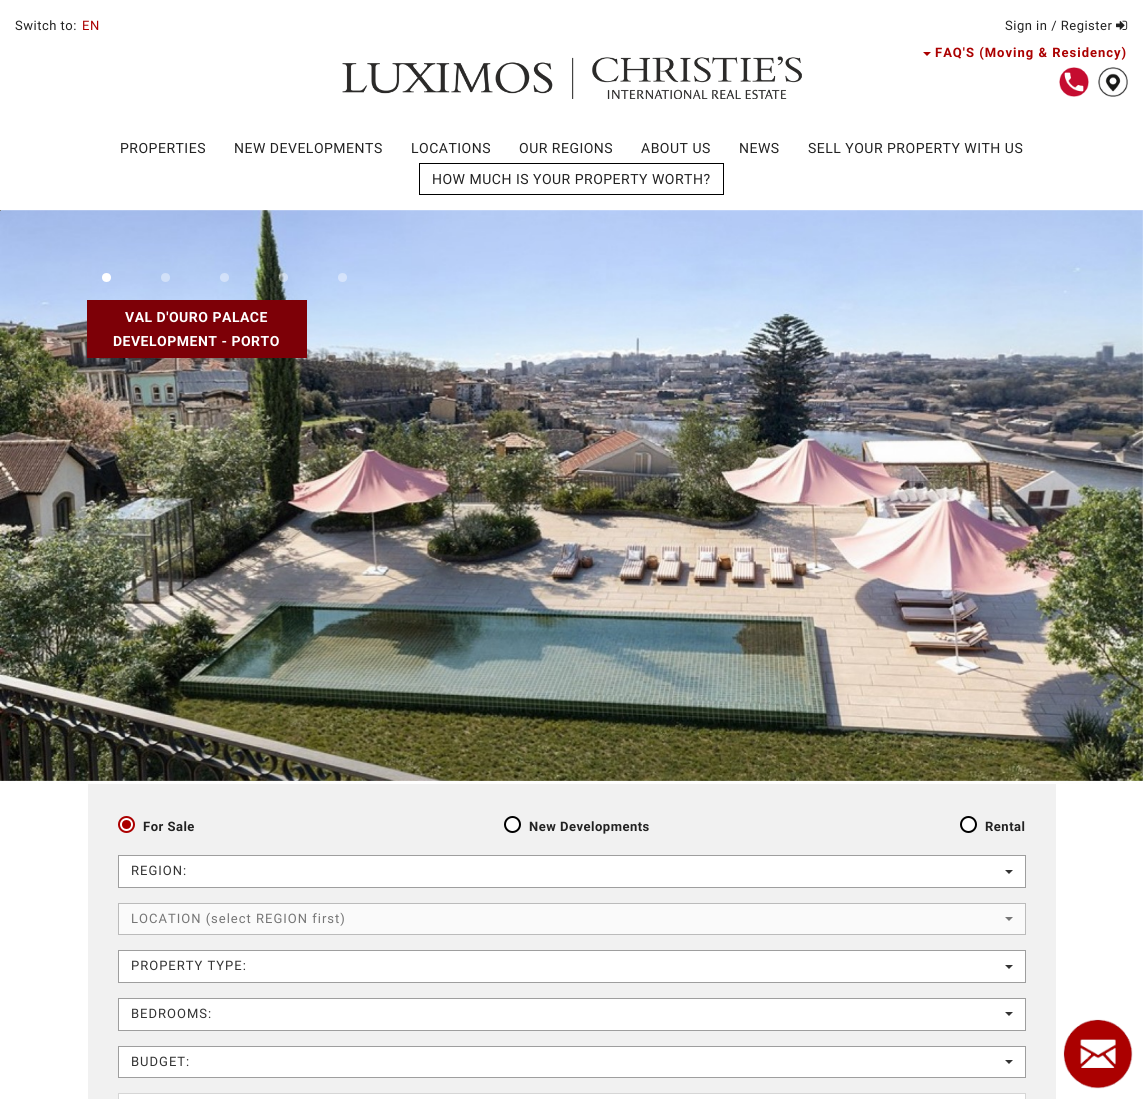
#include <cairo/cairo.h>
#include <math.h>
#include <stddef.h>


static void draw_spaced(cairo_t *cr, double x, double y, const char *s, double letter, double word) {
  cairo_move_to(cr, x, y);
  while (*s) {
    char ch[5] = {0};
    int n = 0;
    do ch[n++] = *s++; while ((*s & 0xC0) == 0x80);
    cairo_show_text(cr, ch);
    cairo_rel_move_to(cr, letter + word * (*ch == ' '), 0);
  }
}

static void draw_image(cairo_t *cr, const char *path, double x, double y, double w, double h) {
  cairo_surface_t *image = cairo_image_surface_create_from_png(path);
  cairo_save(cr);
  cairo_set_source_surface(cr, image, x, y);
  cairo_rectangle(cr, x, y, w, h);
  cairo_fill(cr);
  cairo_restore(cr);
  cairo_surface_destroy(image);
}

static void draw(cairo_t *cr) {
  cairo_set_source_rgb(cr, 1, 1, 1);
  cairo_paint(cr);
  draw_image(cr, "images/1.png", 1116, 20, 12, 10);
  cairo_set_source_rgb(cr, 171 / 255.0, 0, 0);
  cairo_new_path(cr);
  cairo_move_to(cr, 923, 52);
  cairo_line_to(cr, 931, 52);
  cairo_line_to(cr, 927, 56);
  cairo_close_path(cr);
  cairo_fill(cr);
  draw_image(cr, "images/2.png", 342, 56, 460, 43);
  draw_image(cr, "images/3.png", 1059, 67, 30, 30);
  draw_image(cr, "images/4.png", 1098, 67, 30, 30);
  cairo_rectangle(cr, 419.5, 163.5, 304, 31);
  cairo_set_source_rgb(cr, 0, 0, 0);
  cairo_set_line_width(cr, 1);
  cairo_stroke(cr);
  draw_image(cr, "images/5.png", 0, 210, 1143, 571);
  cairo_set_source_rgb(cr, 1, 1, 1);
  cairo_arc(cr, 106.5, 277.5, 4.5, 0, 2 * M_PI);
  cairo_fill(cr);
  cairo_set_source_rgba(cr, 1, 1, 1, 0.4);
  cairo_arc(cr, 165.5, 277.5, 4.5, 0, 2 * M_PI);
  cairo_fill(cr);
  cairo_arc(cr, 224.5, 277.5, 4.5, 0, 2 * M_PI);
  cairo_fill(cr);
  cairo_arc(cr, 283.5, 277.5, 4.5, 0, 2 * M_PI);
  cairo_fill(cr);
  cairo_arc(cr, 342.5, 277.5, 4.5, 0, 2 * M_PI);
  cairo_fill(cr);
  cairo_set_source_rgb(cr, 128 / 255.0, 130 / 255.0, 128 / 255.0);
  cairo_rectangle(cr, 0, 210, 1, 1);
  cairo_fill(cr);
  cairo_set_source_rgb(cr, 125 / 255.0, 0, 7 / 255.0);
  cairo_rectangle(cr, 87, 300, 220, 58);
  cairo_fill(cr);
  cairo_set_source_rgb(cr, 241 / 255.0, 241 / 255.0, 241 / 255.0);
  cairo_rectangle(cr, 88, 784, 968, 315);
  cairo_fill(cr);
  cairo_set_source_rgb(cr, 1, 1, 1);
  cairo_arc(cr, 126.5, 824.5, 7.5, 0, 2 * M_PI);
  cairo_fill_preserve(cr);
  cairo_set_source_rgb(cr, 171 / 255.0, 0, 0);
  cairo_set_line_width(cr, 2);
  cairo_stroke(cr);
  cairo_arc(cr, 126.5, 824.5, 4.5, 0, 2 * M_PI);
  cairo_fill(cr);
  cairo_set_source_rgb(cr, 1, 1, 1);
  cairo_arc(cr, 512.5, 824.5, 7.5, 0, 2 * M_PI);
  cairo_fill_preserve(cr);
  cairo_set_source_rgb(cr, 0, 0, 0);
  cairo_stroke(cr);
  cairo_set_source_rgb(cr, 1, 1, 1);
  cairo_arc(cr, 968.5, 824.5, 7.5, 0, 2 * M_PI);
  cairo_fill_preserve(cr);
  cairo_set_source_rgb(cr, 0, 0, 0);
  cairo_stroke(cr);
  cairo_set_source_rgb(cr, 1, 1, 1);
  cairo_rectangle(cr, 118.5, 855.5, 907, 32);
  cairo_fill_preserve(cr);
  cairo_set_source_rgb(cr, 158 / 255.0, 158 / 255.0, 158 / 255.0);
  cairo_set_line_width(cr, 1);
  cairo_stroke(cr);
  cairo_set_source_rgb(cr, 51 / 255.0, 51 / 255.0, 51 / 255.0);
  cairo_new_path(cr);
  cairo_move_to(cr, 1005, 870);
  cairo_line_to(cr, 1013, 870);
  cairo_line_to(cr, 1009, 874);
  cairo_close_path(cr);
  cairo_fill(cr);
  cairo_set_source_rgb(cr, 250 / 255.0, 250 / 255.0, 250 / 255.0);
  cairo_rectangle(cr, 118.5, 903.5, 907, 31);
  cairo_fill_preserve(cr);
  cairo_set_source_rgb(cr, 187 / 255.0, 187 / 255.0, 187 / 255.0);
  cairo_stroke(cr);
  cairo_set_source_rgb(cr, 118 / 255.0, 118 / 255.0, 118 / 255.0);
  cairo_new_path(cr);
  cairo_move_to(cr, 1005, 917);
  cairo_line_to(cr, 1013, 917);
  cairo_line_to(cr, 1009, 921);
  cairo_close_path(cr);
  cairo_fill(cr);
  cairo_set_source_rgb(cr, 1, 1, 1);
  cairo_rectangle(cr, 118.5, 950.5, 907, 32);
  cairo_fill_preserve(cr);
  cairo_set_source_rgb(cr, 158 / 255.0, 158 / 255.0, 158 / 255.0);
  cairo_stroke(cr);
  cairo_set_source_rgb(cr, 51 / 255.0, 51 / 255.0, 51 / 255.0);
  cairo_new_path(cr);
  cairo_move_to(cr, 1005, 965);
  cairo_line_to(cr, 1013, 965);
  cairo_line_to(cr, 1009, 969);
  cairo_close_path(cr);
  cairo_fill(cr);
  cairo_set_source_rgb(cr, 1, 1, 1);
  cairo_rectangle(cr, 118.5, 998.5, 907, 32);
  cairo_fill_preserve(cr);
  cairo_set_source_rgb(cr, 158 / 255.0, 158 / 255.0, 158 / 255.0);
  cairo_stroke(cr);
  cairo_set_source_rgb(cr, 51 / 255.0, 51 / 255.0, 51 / 255.0);
  cairo_new_path(cr);
  cairo_move_to(cr, 1005, 1012);
  cairo_line_to(cr, 1013, 1012);
  cairo_line_to(cr, 1009, 1016);
  cairo_close_path(cr);
  cairo_fill(cr);
  cairo_set_source_rgb(cr, 1, 1, 1);
  cairo_rectangle(cr, 118.5, 1046.5, 907, 31);
  cairo_fill_preserve(cr);
  cairo_set_source_rgb(cr, 158 / 255.0, 158 / 255.0, 158 / 255.0);
  cairo_stroke(cr);
  cairo_set_source_rgb(cr, 51 / 255.0, 51 / 255.0, 51 / 255.0);
  cairo_new_path(cr);
  cairo_move_to(cr, 1005, 1060);
  cairo_line_to(cr, 1013, 1060);
  cairo_line_to(cr, 1009, 1064);
  cairo_close_path(cr);
  cairo_fill(cr);
  cairo_set_source_rgb(cr, 1, 1, 1);
  cairo_rectangle(cr, 118.5, 1093.5, 907, 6);
  cairo_fill_preserve(cr);
  cairo_set_source_rgb(cr, 214 / 255.0, 214 / 255.0, 214 / 255.0);
  cairo_stroke(cr);
  draw_image(cr, "images/6.png", 1063, 1019, 70, 70);
  cairo_select_font_face(cr, "Roboto", CAIRO_FONT_SLANT_NORMAL, CAIRO_FONT_WEIGHT_NORMAL);
  cairo_set_font_size(cr, 13);
  cairo_set_source_rgb(cr, 34 / 255.0, 34 / 255.0, 34 / 255.0);
  draw_spaced(cr, 15, 30, "Switch to:", 0.5, 0);
  cairo_set_source_rgb(cr, 171 / 255.0, 0, 0);
  draw_spaced(cr, 82, 30, "EN", 0.5, 0);
  cairo_set_source_rgb(cr, 34 / 255.0, 34 / 255.0, 34 / 255.0);
  draw_spaced(cr, 1005, 30, "Sign in / Register", 0.5, 0);
  cairo_select_font_face(cr, "Roboto", CAIRO_FONT_SLANT_NORMAL, CAIRO_FONT_WEIGHT_BOLD);
  cairo_set_source_rgb(cr, 171 / 255.0, 0, 0);
  draw_spaced(cr, 935, 57, "FAQ'S (Moving & Residency)", 1, 0);
  cairo_select_font_face(cr, "Roboto", CAIRO_FONT_SLANT_NORMAL, CAIRO_FONT_WEIGHT_NORMAL);
  cairo_set_font_size(cr, 14);
  cairo_set_source_rgb(cr, 34 / 255.0, 34 / 255.0, 34 / 255.0);
  draw_spaced(cr, 120, 153, "PROPERTIES", 0.5, 0);
  draw_spaced(cr, 234, 153, "NEW DEVELOPMENTS", 0.5, 0);
  draw_spaced(cr, 411, 153, "LOCATIONS", 0.5, 0);
  draw_spaced(cr, 519, 153, "OUR REGIONS", 0.5, 0);
  draw_spaced(cr, 641, 153, "ABOUT US", 0.5, 0);
  draw_spaced(cr, 739, 153, "NEWS", 0.5, 0);
  draw_spaced(cr, 808, 153, "SELL YOUR PROPERTY WITH US", 0.5, 0);
  draw_spaced(cr, 432, 184, "HOW MUCH IS YOUR PROPERTY WORTH?", 0.5, 0);
  cairo_select_font_face(cr, "Roboto", CAIRO_FONT_SLANT_NORMAL, CAIRO_FONT_WEIGHT_BOLD);
  cairo_set_source_rgb(cr, 1, 1, 1);
  draw_spaced(cr, 125, 322, "VAL D'OURO PALACE", 0.5, 0);
  draw_spaced(cr, 113, 346, "DEVELOPMENT - PORTO", 0.5, 0);
  cairo_set_font_size(cr, 13);
  cairo_set_source_rgb(cr, 34 / 255.0, 34 / 255.0, 34 / 255.0);
  draw_spaced(cr, 143, 831, "For Sale", 0.5, 0);
  draw_spaced(cr, 529, 831, "New Developments", 0.5, 0);
  draw_spaced(cr, 985, 831, "Rental", 0.5, 0);
  cairo_select_font_face(cr, "Roboto", CAIRO_FONT_SLANT_NORMAL, CAIRO_FONT_WEIGHT_NORMAL);
  cairo_set_source_rgb(cr, 51 / 255.0, 51 / 255.0, 51 / 255.0);
  draw_spaced(cr, 131, 875, "REGION:", 1, 0);
  cairo_set_source_rgb(cr, 118 / 255.0, 118 / 255.0, 118 / 255.0);
  draw_spaced(cr, 131, 923, "LOCATION (select REGION first)", 1, 0);
  cairo_set_source_rgb(cr, 51 / 255.0, 51 / 255.0, 51 / 255.0);
  draw_spaced(cr, 131, 970, "PROPERTY TYPE:", 1, 0);
  draw_spaced(cr, 131, 1018, "BEDROOMS:", 1, 0);
  draw_spaced(cr, 131, 1066, "BUDGET:", 1, 0);
}

int main(void) {
  cairo_surface_t *surface = cairo_image_surface_create(CAIRO_FORMAT_RGB24, 1143, 1099);
  cairo_t *cr = cairo_create(surface);
  cairo_font_options_t *options = cairo_font_options_create();
  cairo_font_options_set_hint_metrics(options, CAIRO_HINT_METRICS_OFF);
  cairo_font_options_set_hint_style(options, CAIRO_HINT_STYLE_NONE);
  cairo_set_font_options(cr, options);
  cairo_set_miter_limit(cr, 4);
  draw(cr);
  cairo_surface_write_to_png(surface, "out.png");
  cairo_font_options_destroy(options);
  cairo_destroy(cr);
  cairo_surface_destroy(surface);
  return 0;
}
